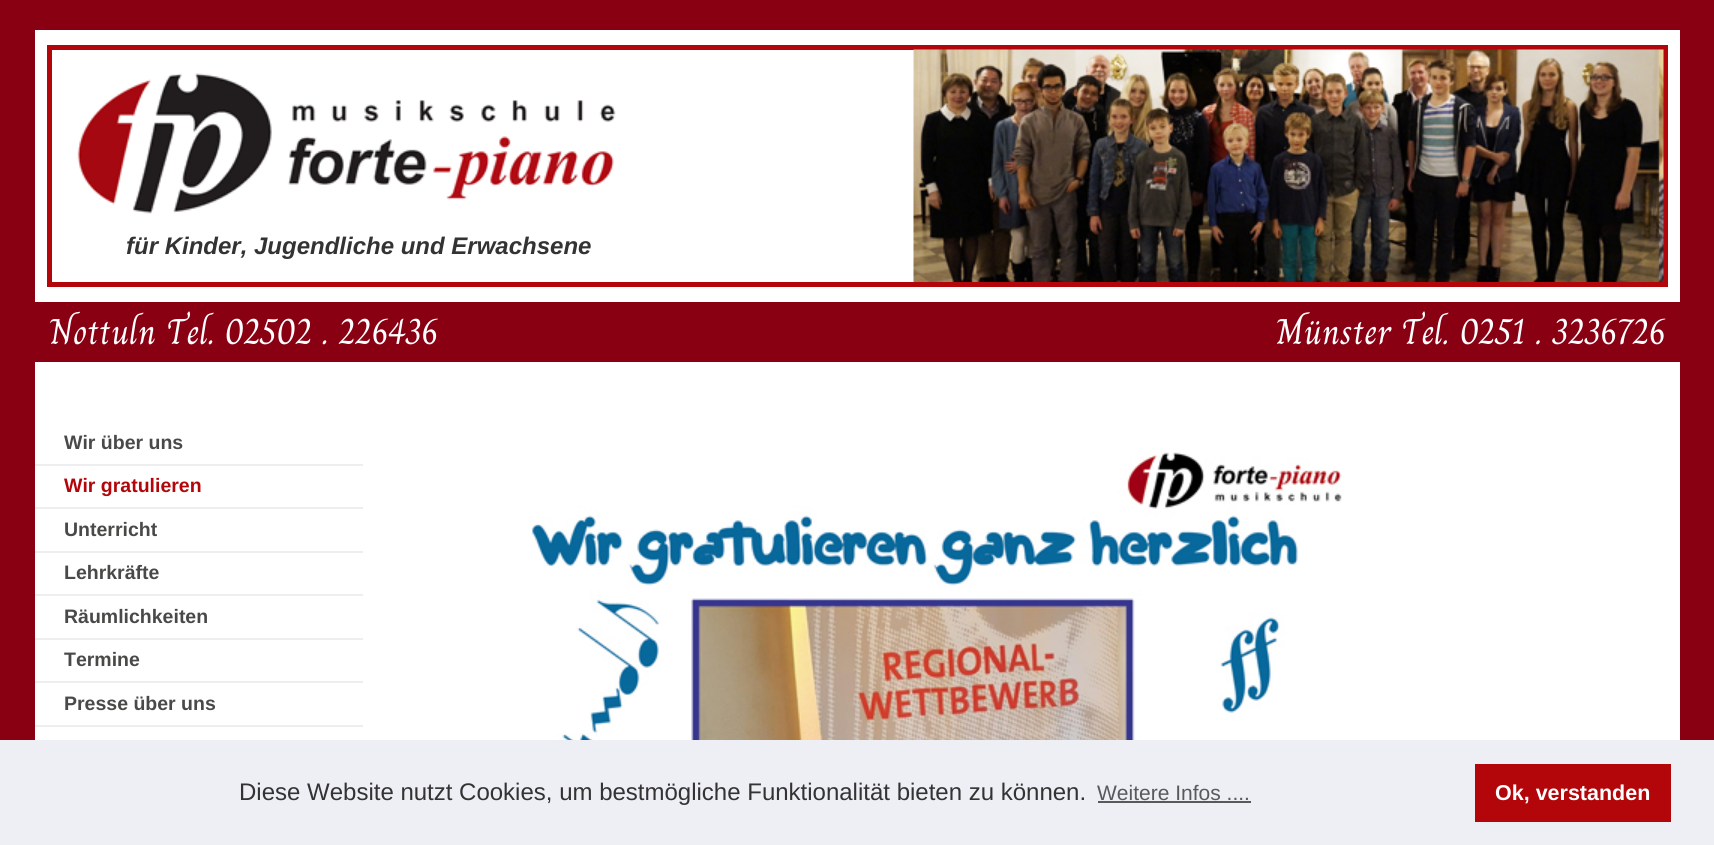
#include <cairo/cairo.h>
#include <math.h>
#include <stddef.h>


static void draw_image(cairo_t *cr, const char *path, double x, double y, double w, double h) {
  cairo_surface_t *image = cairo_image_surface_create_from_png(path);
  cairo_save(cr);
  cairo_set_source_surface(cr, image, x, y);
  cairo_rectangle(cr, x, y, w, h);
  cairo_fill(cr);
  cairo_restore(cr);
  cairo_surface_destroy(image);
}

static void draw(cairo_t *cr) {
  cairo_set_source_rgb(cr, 137 / 255.0, 0, 18 / 255.0);
  cairo_paint(cr);
  cairo_set_source_rgb(cr, 1, 1, 1);
  cairo_rectangle(cr, 35, 30, 1645, 710);
  cairo_fill(cr);
  cairo_rectangle(cr, 49.5, 47.5, 1616, 237);
  cairo_set_source_rgb(cr, 179 / 255.0, 6 / 255.0, 10 / 255.0);
  cairo_set_line_width(cr, 5);
  cairo_stroke(cr);
  draw_image(cr, "images/1.png", 77, 73, 539, 141);
  draw_image(cr, "images/2.png", 913, 49, 751, 233);
  cairo_set_source_rgb(cr, 137 / 255.0, 0, 18 / 255.0);
  cairo_rectangle(cr, 35, 302, 1645, 60);
  cairo_fill(cr);
  cairo_set_source_rgb(cr, 238 / 255.0, 238 / 255.0, 238 / 255.0);
  cairo_rectangle(cr, 35, 464, 328, 2);
  cairo_fill(cr);
  cairo_rectangle(cr, 35, 507, 328, 2);
  cairo_fill(cr);
  cairo_rectangle(cr, 35, 551, 328, 2);
  cairo_fill(cr);
  cairo_rectangle(cr, 35, 594, 328, 2);
  cairo_fill(cr);
  cairo_rectangle(cr, 35, 638, 328, 2);
  cairo_fill(cr);
  cairo_rectangle(cr, 35, 681, 328, 2);
  cairo_fill(cr);
  cairo_rectangle(cr, 35, 725, 328, 2);
  cairo_fill(cr);
  draw_image(cr, "images/3.png", 491, 452, 851, 288);
  cairo_set_source_rgb(cr, 237 / 255.0, 239 / 255.0, 245 / 255.0);
  cairo_rectangle(cr, 0, 740, 1714, 105);
  cairo_fill(cr);
  cairo_set_source_rgb(cr, 88 / 255.0, 89 / 255.0, 90 / 255.0);
  cairo_rectangle(cr, 1098, 801, 153, 2);
  cairo_fill(cr);
  cairo_set_source_rgb(cr, 179 / 255.0, 6 / 255.0, 10 / 255.0);
  cairo_rectangle(cr, 1475, 764, 196, 58);
  cairo_fill(cr);
  cairo_select_font_face(cr, "Liberation Sans", CAIRO_FONT_SLANT_ITALIC, CAIRO_FONT_WEIGHT_BOLD);
  cairo_set_font_size(cr, 24);
  cairo_set_source_rgb(cr, 51 / 255.0, 51 / 255.0, 51 / 255.0);
  cairo_move_to(cr, 126, 254);
  cairo_show_text(cr, "für Kinder, Jugendliche und Erwachsene");
  cairo_select_font_face(cr, "Charm", CAIRO_FONT_SLANT_NORMAL, CAIRO_FONT_WEIGHT_NORMAL);
  cairo_set_font_size(cr, 36);
  cairo_set_source_rgb(cr, 1, 1, 1);
  cairo_move_to(cr, 49, 344);
  cairo_show_text(cr, "Nottuln Tel. 02502 . 226436");
  cairo_move_to(cr, 1276, 344);
  cairo_show_text(cr, "Münster Tel. 0251 . 3236726");
  cairo_select_font_face(cr, "Liberation Sans", CAIRO_FONT_SLANT_NORMAL, CAIRO_FONT_WEIGHT_BOLD);
  cairo_set_font_size(cr, 19.5);
  cairo_set_source_rgb(cr, 73 / 255.0, 73 / 255.0, 72 / 255.0);
  cairo_move_to(cr, 64, 449);
  cairo_show_text(cr, "Wir über uns");
  cairo_set_source_rgb(cr, 179 / 255.0, 6 / 255.0, 10 / 255.0);
  cairo_move_to(cr, 64, 492);
  cairo_show_text(cr, "Wir gratulieren");
  cairo_set_source_rgb(cr, 73 / 255.0, 73 / 255.0, 72 / 255.0);
  cairo_move_to(cr, 64, 536);
  cairo_show_text(cr, "Unterricht");
  cairo_move_to(cr, 64, 579);
  cairo_show_text(cr, "Lehrkräfte");
  cairo_move_to(cr, 64, 623);
  cairo_show_text(cr, "Räumlichkeiten");
  cairo_move_to(cr, 64, 666);
  cairo_show_text(cr, "Termine");
  cairo_move_to(cr, 64, 710);
  cairo_show_text(cr, "Presse über uns");
  cairo_select_font_face(cr, "Liberation Sans", CAIRO_FONT_SLANT_NORMAL, CAIRO_FONT_WEIGHT_NORMAL);
  cairo_set_font_size(cr, 24);
  cairo_set_source_rgb(cr, 51 / 255.0, 51 / 255.0, 51 / 255.0);
  cairo_move_to(cr, 239, 800);
  cairo_show_text(cr, "Diese Website nutzt Cookies, um bestmögliche Funktionalität bieten zu können.");
  cairo_set_font_size(cr, 21);
  cairo_set_source_rgb(cr, 88 / 255.0, 89 / 255.0, 90 / 255.0);
  cairo_move_to(cr, 1097, 800);
  cairo_show_text(cr, "Weitere Infos ....");
  cairo_select_font_face(cr, "Liberation Sans", CAIRO_FONT_SLANT_NORMAL, CAIRO_FONT_WEIGHT_BOLD);
  cairo_set_font_size(cr, 21.5);
  cairo_set_source_rgb(cr, 1, 1, 1);
  cairo_move_to(cr, 1495, 800);
  cairo_show_text(cr, "Ok, verstanden");
}

int main(void) {
  cairo_surface_t *surface = cairo_image_surface_create(CAIRO_FORMAT_RGB24, 1714, 845);
  cairo_t *cr = cairo_create(surface);
  cairo_font_options_t *options = cairo_font_options_create();
  cairo_font_options_set_hint_metrics(options, CAIRO_HINT_METRICS_OFF);
  cairo_font_options_set_hint_style(options, CAIRO_HINT_STYLE_NONE);
  cairo_set_font_options(cr, options);
  cairo_set_miter_limit(cr, 4);
  draw(cr);
  cairo_surface_write_to_png(surface, "out.png");
  cairo_font_options_destroy(options);
  cairo_destroy(cr);
  cairo_surface_destroy(surface);
  return 0;
}
